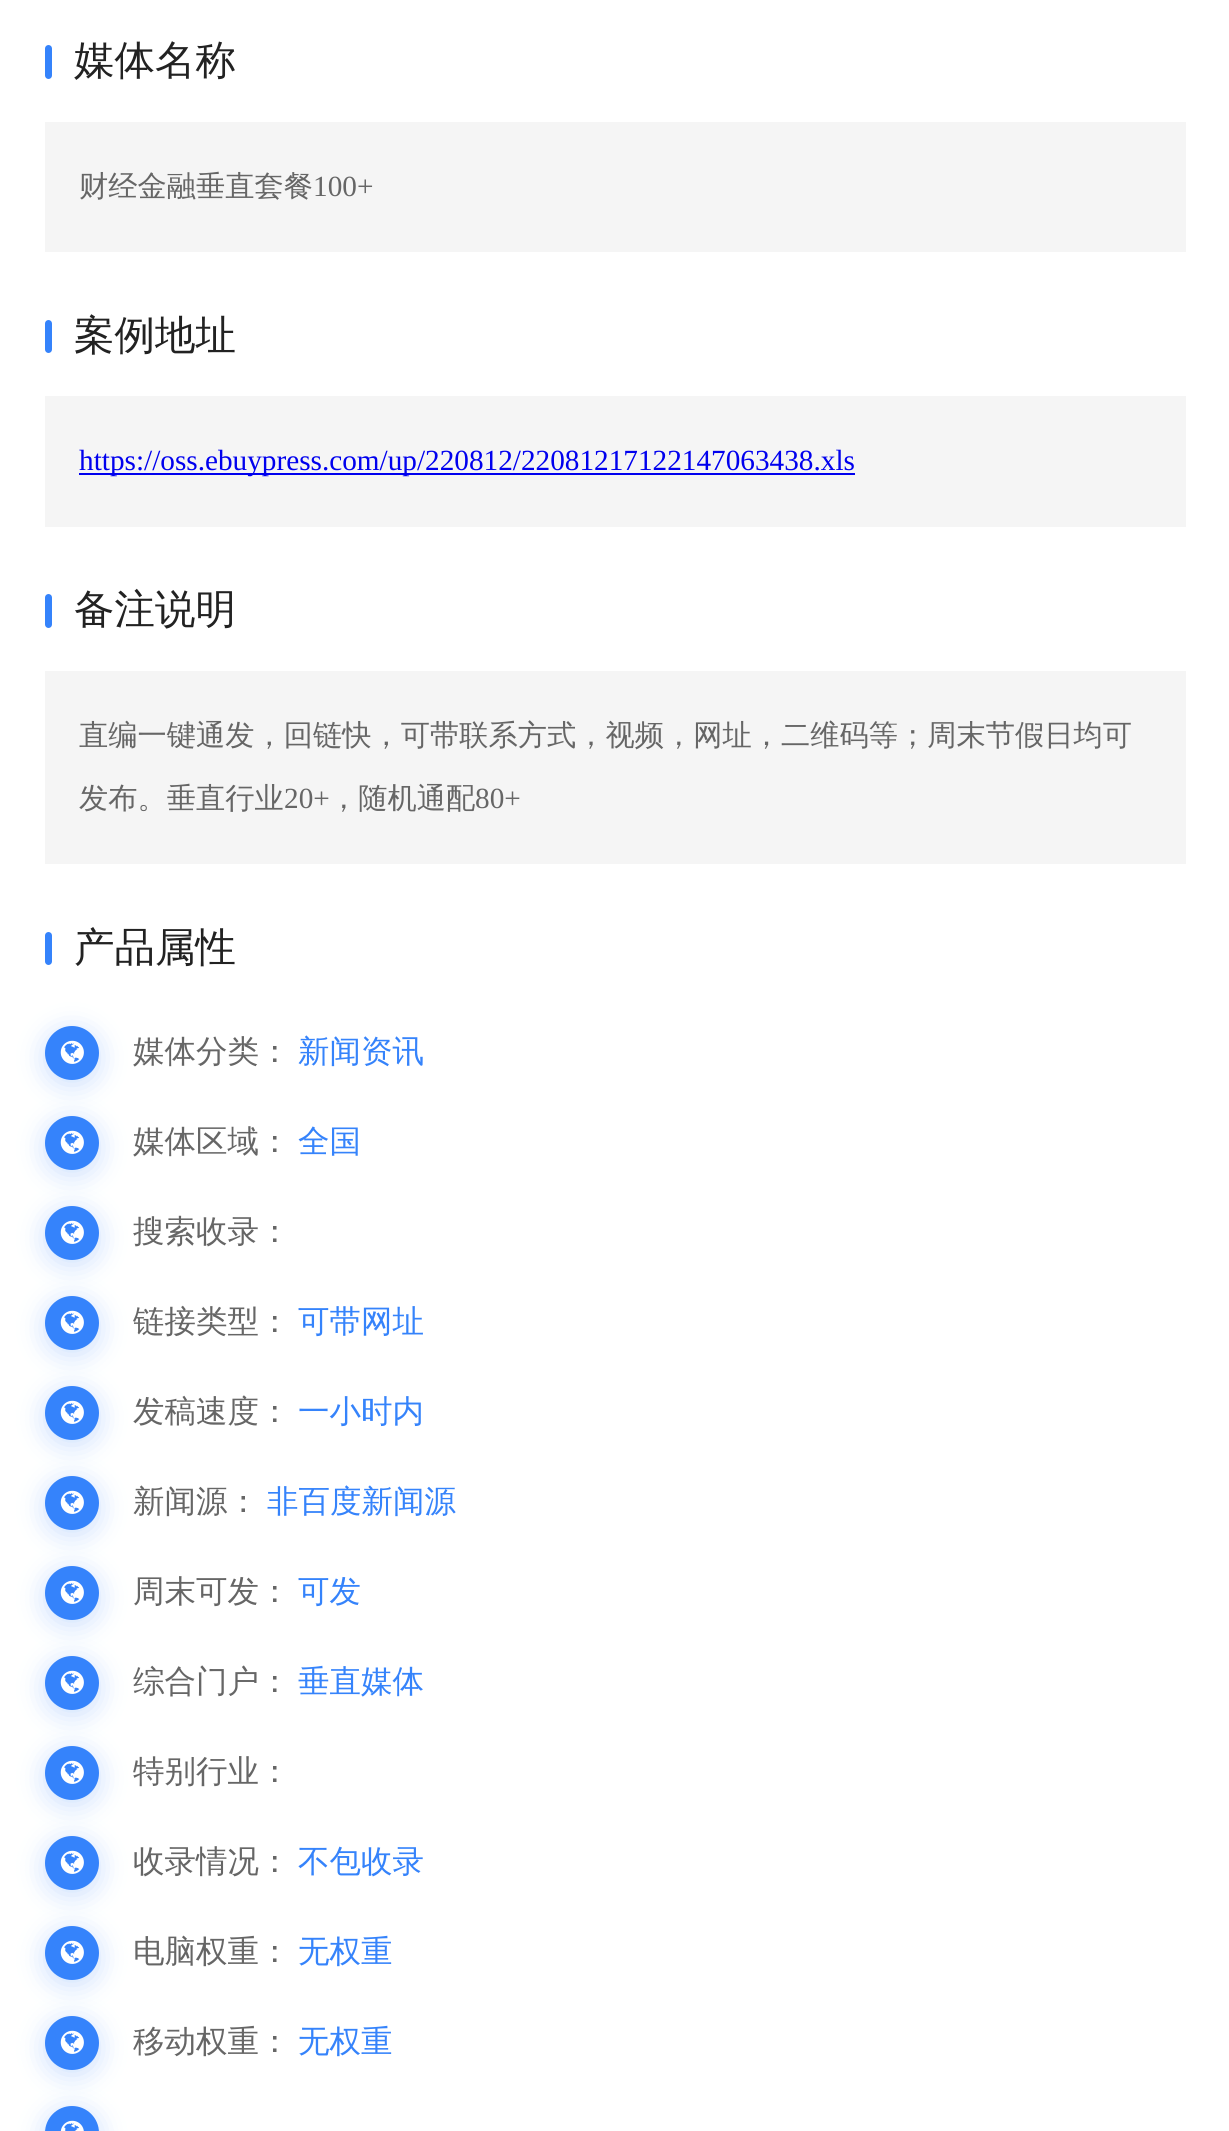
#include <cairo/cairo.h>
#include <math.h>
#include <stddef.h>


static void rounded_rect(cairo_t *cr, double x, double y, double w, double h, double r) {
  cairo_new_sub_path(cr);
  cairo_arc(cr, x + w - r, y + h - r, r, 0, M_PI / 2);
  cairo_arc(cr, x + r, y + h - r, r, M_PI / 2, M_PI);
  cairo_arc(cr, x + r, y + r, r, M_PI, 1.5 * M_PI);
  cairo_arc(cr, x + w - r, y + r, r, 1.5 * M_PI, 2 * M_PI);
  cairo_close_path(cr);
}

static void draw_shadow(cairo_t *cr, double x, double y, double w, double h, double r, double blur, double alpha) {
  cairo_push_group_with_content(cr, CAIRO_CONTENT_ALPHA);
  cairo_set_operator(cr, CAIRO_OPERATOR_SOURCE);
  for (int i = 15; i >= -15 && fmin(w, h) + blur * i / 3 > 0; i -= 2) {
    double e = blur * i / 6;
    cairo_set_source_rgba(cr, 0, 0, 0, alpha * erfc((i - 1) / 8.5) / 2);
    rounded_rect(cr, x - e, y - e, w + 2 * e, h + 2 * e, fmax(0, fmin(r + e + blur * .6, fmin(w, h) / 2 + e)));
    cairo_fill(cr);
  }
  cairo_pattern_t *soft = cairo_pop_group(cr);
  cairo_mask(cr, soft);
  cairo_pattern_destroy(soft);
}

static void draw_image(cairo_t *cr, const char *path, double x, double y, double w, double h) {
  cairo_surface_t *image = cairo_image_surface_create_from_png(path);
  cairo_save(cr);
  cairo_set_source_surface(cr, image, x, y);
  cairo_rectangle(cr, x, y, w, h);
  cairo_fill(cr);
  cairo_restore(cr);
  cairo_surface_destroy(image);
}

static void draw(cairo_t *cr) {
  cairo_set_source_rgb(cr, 1, 1, 1);
  cairo_paint(cr);
  cairo_set_source_rgb(cr, 53 / 255.0, 131 / 255.0, 251 / 255.0);
  rounded_rect(cr, 45, 45, 7, 34, 3.5);
  cairo_fill(cr);
  cairo_set_source_rgb(cr, 245 / 255.0, 245 / 255.0, 245 / 255.0);
  cairo_rectangle(cr, 45, 122, 1141, 130);
  cairo_fill(cr);
  cairo_set_source_rgb(cr, 53 / 255.0, 131 / 255.0, 251 / 255.0);
  rounded_rect(cr, 45, 320, 7, 33, 3.5);
  cairo_fill(cr);
  cairo_set_source_rgb(cr, 245 / 255.0, 245 / 255.0, 245 / 255.0);
  cairo_rectangle(cr, 45, 396, 1141, 131);
  cairo_fill(cr);
  cairo_set_source_rgb(cr, 0, 0, 238 / 255.0);
  cairo_rectangle(cr, 79, 473, 776, 2);
  cairo_fill(cr);
  cairo_set_source_rgb(cr, 53 / 255.0, 131 / 255.0, 251 / 255.0);
  rounded_rect(cr, 45, 594, 7, 34, 3.5);
  cairo_fill(cr);
  cairo_set_source_rgb(cr, 245 / 255.0, 245 / 255.0, 245 / 255.0);
  cairo_rectangle(cr, 45, 671, 1141, 193);
  cairo_fill(cr);
  cairo_set_source_rgb(cr, 53 / 255.0, 131 / 255.0, 251 / 255.0);
  rounded_rect(cr, 45, 932, 7, 33, 3.5);
  cairo_fill(cr);
  cairo_set_source_rgb(cr, 53 / 255.0, 131 / 255.0, 251 / 255.0);
  draw_shadow(cr, 45, 1031, 54, 54, 27, 13.5, 0.25);
  cairo_set_source_rgb(cr, 53 / 255.0, 131 / 255.0, 251 / 255.0);
  cairo_arc(cr, 72, 1053, 27, 0, 2 * M_PI);
  cairo_fill(cr);
  draw_image(cr, "images/1.png", 60, 1040, 24, 24);
  cairo_set_source_rgb(cr, 53 / 255.0, 131 / 255.0, 251 / 255.0);
  draw_shadow(cr, 45, 1121, 54, 54, 27, 13.5, 0.25);
  cairo_set_source_rgb(cr, 53 / 255.0, 131 / 255.0, 251 / 255.0);
  cairo_arc(cr, 72, 1143, 27, 0, 2 * M_PI);
  cairo_fill(cr);
  draw_image(cr, "images/1.png", 60, 1130, 24, 24);
  cairo_set_source_rgb(cr, 53 / 255.0, 131 / 255.0, 251 / 255.0);
  draw_shadow(cr, 45, 1211, 54, 54, 27, 13.5, 0.25);
  cairo_set_source_rgb(cr, 53 / 255.0, 131 / 255.0, 251 / 255.0);
  cairo_arc(cr, 72, 1233, 27, 0, 2 * M_PI);
  cairo_fill(cr);
  draw_image(cr, "images/1.png", 60, 1220, 24, 24);
  cairo_set_source_rgb(cr, 53 / 255.0, 131 / 255.0, 251 / 255.0);
  draw_shadow(cr, 45, 1301, 54, 54, 27, 13.5, 0.25);
  cairo_set_source_rgb(cr, 53 / 255.0, 131 / 255.0, 251 / 255.0);
  cairo_arc(cr, 72, 1323, 27, 0, 2 * M_PI);
  cairo_fill(cr);
  draw_image(cr, "images/1.png", 60, 1310, 24, 24);
  cairo_set_source_rgb(cr, 53 / 255.0, 131 / 255.0, 251 / 255.0);
  draw_shadow(cr, 45, 1391, 54, 54, 27, 13.5, 0.25);
  cairo_set_source_rgb(cr, 53 / 255.0, 131 / 255.0, 251 / 255.0);
  cairo_arc(cr, 72, 1413, 27, 0, 2 * M_PI);
  cairo_fill(cr);
  draw_image(cr, "images/1.png", 60, 1400, 24, 24);
  cairo_set_source_rgb(cr, 53 / 255.0, 131 / 255.0, 251 / 255.0);
  draw_shadow(cr, 45, 1481, 54, 54, 27, 13.5, 0.25);
  cairo_set_source_rgb(cr, 53 / 255.0, 131 / 255.0, 251 / 255.0);
  cairo_arc(cr, 72, 1503, 27, 0, 2 * M_PI);
  cairo_fill(cr);
  draw_image(cr, "images/1.png", 60, 1490, 24, 24);
  cairo_set_source_rgb(cr, 53 / 255.0, 131 / 255.0, 251 / 255.0);
  draw_shadow(cr, 45, 1571, 54, 54, 27, 13.5, 0.25);
  cairo_set_source_rgb(cr, 53 / 255.0, 131 / 255.0, 251 / 255.0);
  cairo_arc(cr, 72, 1593, 27, 0, 2 * M_PI);
  cairo_fill(cr);
  draw_image(cr, "images/1.png", 60, 1580, 24, 24);
  cairo_set_source_rgb(cr, 53 / 255.0, 131 / 255.0, 251 / 255.0);
  draw_shadow(cr, 45, 1661, 54, 54, 27, 13.5, 0.25);
  cairo_set_source_rgb(cr, 53 / 255.0, 131 / 255.0, 251 / 255.0);
  cairo_arc(cr, 72, 1683, 27, 0, 2 * M_PI);
  cairo_fill(cr);
  draw_image(cr, "images/1.png", 60, 1670, 24, 24);
  cairo_set_source_rgb(cr, 53 / 255.0, 131 / 255.0, 251 / 255.0);
  draw_shadow(cr, 45, 1751, 54, 54, 27, 13.5, 0.25);
  cairo_set_source_rgb(cr, 53 / 255.0, 131 / 255.0, 251 / 255.0);
  cairo_arc(cr, 72, 1773, 27, 0, 2 * M_PI);
  cairo_fill(cr);
  draw_image(cr, "images/1.png", 60, 1760, 24, 24);
  cairo_set_source_rgb(cr, 53 / 255.0, 131 / 255.0, 251 / 255.0);
  draw_shadow(cr, 45, 1841, 54, 54, 27, 13.5, 0.25);
  cairo_set_source_rgb(cr, 53 / 255.0, 131 / 255.0, 251 / 255.0);
  cairo_arc(cr, 72, 1863, 27, 0, 2 * M_PI);
  cairo_fill(cr);
  draw_image(cr, "images/1.png", 60, 1850, 24, 24);
  cairo_set_source_rgb(cr, 53 / 255.0, 131 / 255.0, 251 / 255.0);
  draw_shadow(cr, 45, 1931, 54, 54, 27, 13.5, 0.25);
  cairo_set_source_rgb(cr, 53 / 255.0, 131 / 255.0, 251 / 255.0);
  cairo_arc(cr, 72, 1953, 27, 0, 2 * M_PI);
  cairo_fill(cr);
  draw_image(cr, "images/1.png", 60, 1940, 24, 24);
  cairo_set_source_rgb(cr, 53 / 255.0, 131 / 255.0, 251 / 255.0);
  draw_shadow(cr, 45, 2021, 54, 54, 27, 13.5, 0.25);
  cairo_set_source_rgb(cr, 53 / 255.0, 131 / 255.0, 251 / 255.0);
  cairo_arc(cr, 72, 2043, 27, 0, 2 * M_PI);
  cairo_fill(cr);
  draw_image(cr, "images/1.png", 60, 2030, 24, 24);
  cairo_set_source_rgb(cr, 53 / 255.0, 131 / 255.0, 251 / 255.0);
  draw_shadow(cr, 45, 2111, 54, 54, 27, 13.5, 0.25);
  cairo_set_source_rgb(cr, 53 / 255.0, 131 / 255.0, 251 / 255.0);
  cairo_new_path(cr);
  cairo_move_to(cr, 72, 2106);
  cairo_curve_to(cr, 87, 2106, 99, 2118, 99, 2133);
  cairo_line_to(cr, 45, 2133);
  cairo_curve_to(cr, 45, 2118, 57, 2106, 72, 2106);
  cairo_close_path(cr);
  cairo_fill(cr);
  draw_image(cr, "images/2.png", 60, 2120, 24, 11);
  cairo_select_font_face(cr, "WenQuanYi Zen Hei Medium", CAIRO_FONT_SLANT_NORMAL, CAIRO_FONT_WEIGHT_NORMAL);
  cairo_set_font_size(cr, 40.5);
  cairo_set_source_rgb(cr, 34 / 255.0, 34 / 255.0, 34 / 255.0);
  cairo_move_to(cr, 74, 74);
  cairo_show_text(cr, "媒体名称");
  cairo_set_font_size(cr, 29.25);
  cairo_set_source_rgb(cr, 102 / 255.0, 102 / 255.0, 102 / 255.0);
  cairo_move_to(cr, 79, 196);
  cairo_show_text(cr, "财经金融垂直套餐");
  cairo_select_font_face(cr, "Liberation Serif", CAIRO_FONT_SLANT_NORMAL, CAIRO_FONT_WEIGHT_NORMAL);
  cairo_move_to(cr, 313, 196);
  cairo_show_text(cr, "100+");
  cairo_select_font_face(cr, "WenQuanYi Zen Hei Medium", CAIRO_FONT_SLANT_NORMAL, CAIRO_FONT_WEIGHT_NORMAL);
  cairo_set_font_size(cr, 40.5);
  cairo_set_source_rgb(cr, 34 / 255.0, 34 / 255.0, 34 / 255.0);
  cairo_move_to(cr, 74, 349);
  cairo_show_text(cr, "案例地址");
  cairo_select_font_face(cr, "Liberation Serif", CAIRO_FONT_SLANT_NORMAL, CAIRO_FONT_WEIGHT_NORMAL);
  cairo_set_font_size(cr, 29.25);
  cairo_set_source_rgb(cr, 0, 0, 238 / 255.0);
  cairo_move_to(cr, 79, 470);
  cairo_show_text(cr, "https://oss.ebuypress.com/up/220812/22081217122147063438.xls");
  cairo_select_font_face(cr, "WenQuanYi Zen Hei Medium", CAIRO_FONT_SLANT_NORMAL, CAIRO_FONT_WEIGHT_NORMAL);
  cairo_set_font_size(cr, 40.5);
  cairo_set_source_rgb(cr, 34 / 255.0, 34 / 255.0, 34 / 255.0);
  cairo_move_to(cr, 74, 623);
  cairo_show_text(cr, "备注说明");
  cairo_set_font_size(cr, 29.25);
  cairo_set_source_rgb(cr, 102 / 255.0, 102 / 255.0, 102 / 255.0);
  cairo_move_to(cr, 79, 745);
  cairo_show_text(cr, "直编一键通发，回链快，可带联系方式，视频，网址，二维码等；周末节假日均可");
  cairo_move_to(cr, 79, 808);
  cairo_show_text(cr, "发布。垂直行业");
  cairo_select_font_face(cr, "Liberation Serif", CAIRO_FONT_SLANT_NORMAL, CAIRO_FONT_WEIGHT_NORMAL);
  cairo_move_to(cr, 284, 808);
  cairo_show_text(cr, "20+");
  cairo_select_font_face(cr, "WenQuanYi Zen Hei Medium", CAIRO_FONT_SLANT_NORMAL, CAIRO_FONT_WEIGHT_NORMAL);
  cairo_move_to(cr, 329, 808);
  cairo_show_text(cr, "，随机通配");
  cairo_select_font_face(cr, "Liberation Serif", CAIRO_FONT_SLANT_NORMAL, CAIRO_FONT_WEIGHT_NORMAL);
  cairo_move_to(cr, 475, 808);
  cairo_show_text(cr, "80+");
  cairo_select_font_face(cr, "WenQuanYi Zen Hei Medium", CAIRO_FONT_SLANT_NORMAL, CAIRO_FONT_WEIGHT_NORMAL);
  cairo_set_font_size(cr, 40.5);
  cairo_set_source_rgb(cr, 34 / 255.0, 34 / 255.0, 34 / 255.0);
  cairo_move_to(cr, 74, 961);
  cairo_show_text(cr, "产品属性");
  cairo_set_font_size(cr, 31.5);
  cairo_set_source_rgb(cr, 102 / 255.0, 102 / 255.0, 102 / 255.0);
  cairo_move_to(cr, 133, 1062);
  cairo_show_text(cr, "媒体分类：");
  cairo_set_source_rgb(cr, 53 / 255.0, 131 / 255.0, 251 / 255.0);
  cairo_move_to(cr, 298, 1062);
  cairo_show_text(cr, "新闻资讯");
  cairo_set_source_rgb(cr, 102 / 255.0, 102 / 255.0, 102 / 255.0);
  cairo_move_to(cr, 133, 1152);
  cairo_show_text(cr, "媒体区域：");
  cairo_set_source_rgb(cr, 53 / 255.0, 131 / 255.0, 251 / 255.0);
  cairo_move_to(cr, 298, 1152);
  cairo_show_text(cr, "全国");
  cairo_set_source_rgb(cr, 102 / 255.0, 102 / 255.0, 102 / 255.0);
  cairo_move_to(cr, 133, 1242);
  cairo_show_text(cr, "搜索收录：");
  cairo_move_to(cr, 133, 1332);
  cairo_show_text(cr, "链接类型：");
  cairo_set_source_rgb(cr, 53 / 255.0, 131 / 255.0, 251 / 255.0);
  cairo_move_to(cr, 298, 1332);
  cairo_show_text(cr, "可带网址");
  cairo_set_source_rgb(cr, 102 / 255.0, 102 / 255.0, 102 / 255.0);
  cairo_move_to(cr, 133, 1422);
  cairo_show_text(cr, "发稿速度：");
  cairo_set_source_rgb(cr, 53 / 255.0, 131 / 255.0, 251 / 255.0);
  cairo_move_to(cr, 298, 1422);
  cairo_show_text(cr, "一小时内");
  cairo_set_source_rgb(cr, 102 / 255.0, 102 / 255.0, 102 / 255.0);
  cairo_move_to(cr, 133, 1512);
  cairo_show_text(cr, "新闻源：");
  cairo_set_source_rgb(cr, 53 / 255.0, 131 / 255.0, 251 / 255.0);
  cairo_move_to(cr, 267, 1512);
  cairo_show_text(cr, "非百度新闻源");
  cairo_set_source_rgb(cr, 102 / 255.0, 102 / 255.0, 102 / 255.0);
  cairo_move_to(cr, 133, 1602);
  cairo_show_text(cr, "周末可发：");
  cairo_set_source_rgb(cr, 53 / 255.0, 131 / 255.0, 251 / 255.0);
  cairo_move_to(cr, 298, 1602);
  cairo_show_text(cr, "可发");
  cairo_set_source_rgb(cr, 102 / 255.0, 102 / 255.0, 102 / 255.0);
  cairo_move_to(cr, 133, 1692);
  cairo_show_text(cr, "综合门户：");
  cairo_set_source_rgb(cr, 53 / 255.0, 131 / 255.0, 251 / 255.0);
  cairo_move_to(cr, 298, 1692);
  cairo_show_text(cr, "垂直媒体");
  cairo_set_source_rgb(cr, 102 / 255.0, 102 / 255.0, 102 / 255.0);
  cairo_move_to(cr, 133, 1782);
  cairo_show_text(cr, "特别行业：");
  cairo_move_to(cr, 133, 1872);
  cairo_show_text(cr, "收录情况：");
  cairo_set_source_rgb(cr, 53 / 255.0, 131 / 255.0, 251 / 255.0);
  cairo_move_to(cr, 298, 1872);
  cairo_show_text(cr, "不包收录");
  cairo_set_source_rgb(cr, 102 / 255.0, 102 / 255.0, 102 / 255.0);
  cairo_move_to(cr, 133, 1962);
  cairo_show_text(cr, "电脑权重：");
  cairo_set_source_rgb(cr, 53 / 255.0, 131 / 255.0, 251 / 255.0);
  cairo_move_to(cr, 298, 1962);
  cairo_show_text(cr, "无权重");
  cairo_set_source_rgb(cr, 102 / 255.0, 102 / 255.0, 102 / 255.0);
  cairo_move_to(cr, 133, 2052);
  cairo_show_text(cr, "移动权重：");
  cairo_set_source_rgb(cr, 53 / 255.0, 131 / 255.0, 251 / 255.0);
  cairo_move_to(cr, 298, 2052);
  cairo_show_text(cr, "无权重");
}

int main(void) {
  cairo_surface_t *surface = cairo_image_surface_create(CAIRO_FORMAT_RGB24, 1229, 2131);
  cairo_t *cr = cairo_create(surface);
  cairo_font_options_t *options = cairo_font_options_create();
  cairo_font_options_set_hint_metrics(options, CAIRO_HINT_METRICS_OFF);
  cairo_font_options_set_hint_style(options, CAIRO_HINT_STYLE_NONE);
  cairo_set_font_options(cr, options);
  cairo_set_miter_limit(cr, 4);
  draw(cr);
  cairo_surface_write_to_png(surface, "out.png");
  cairo_font_options_destroy(options);
  cairo_destroy(cr);
  cairo_surface_destroy(surface);
  return 0;
}
